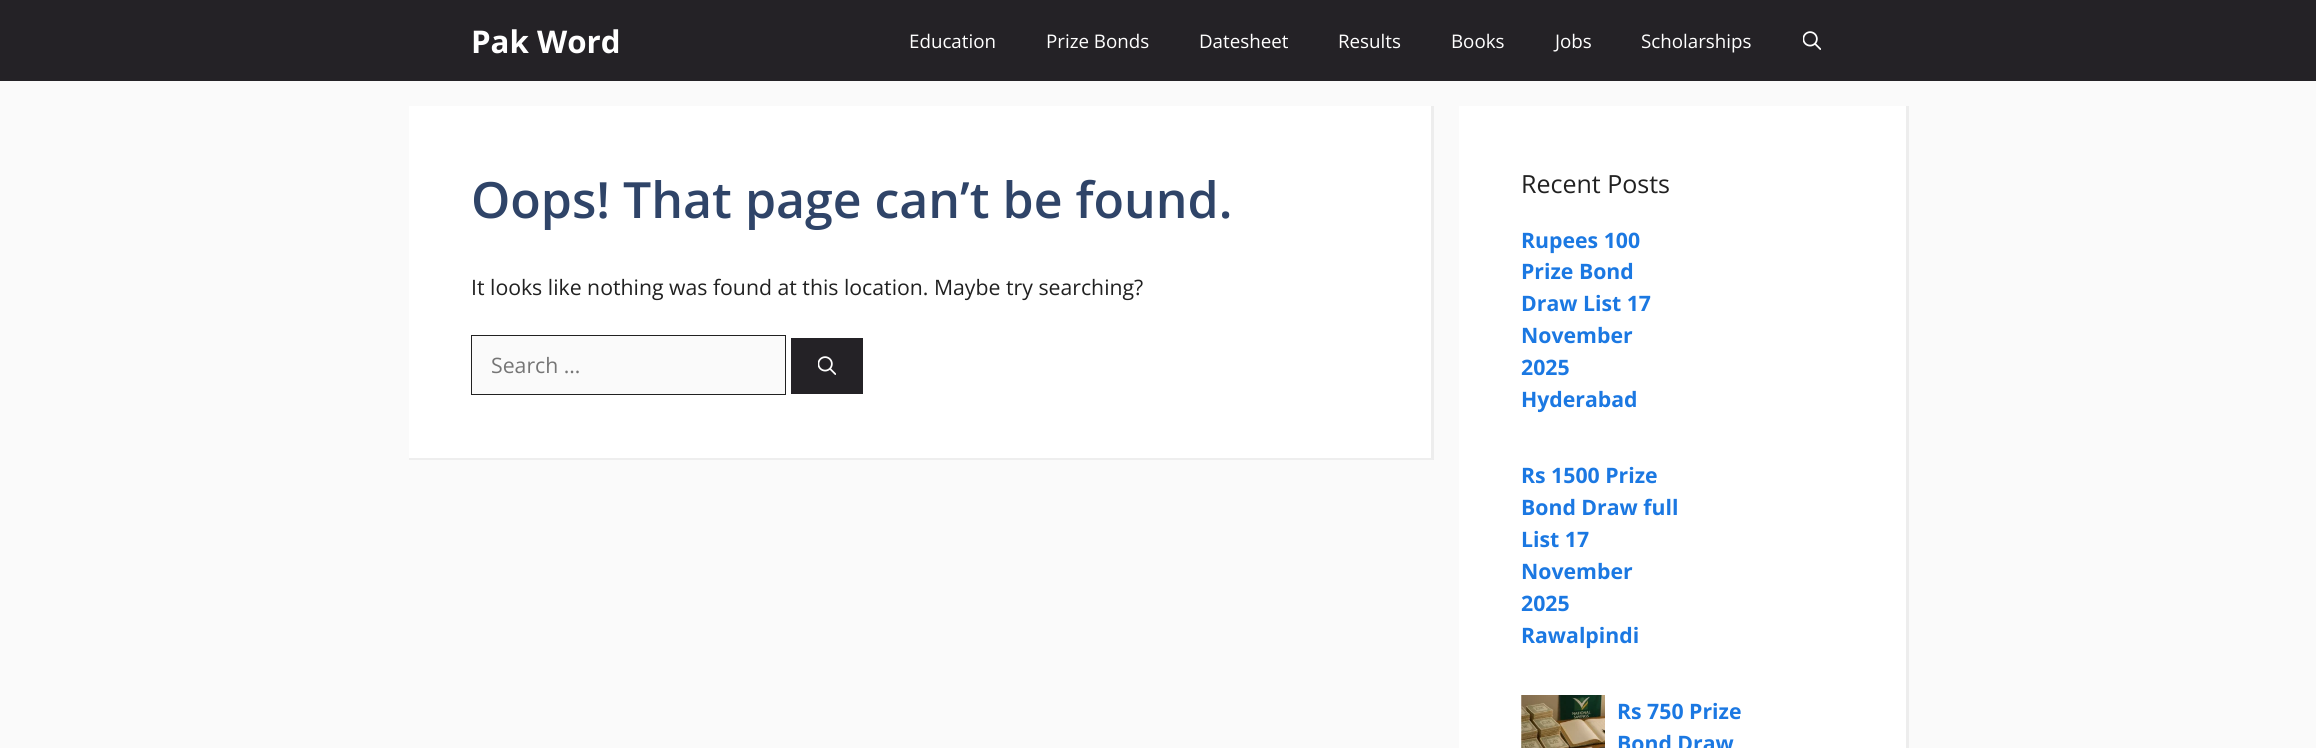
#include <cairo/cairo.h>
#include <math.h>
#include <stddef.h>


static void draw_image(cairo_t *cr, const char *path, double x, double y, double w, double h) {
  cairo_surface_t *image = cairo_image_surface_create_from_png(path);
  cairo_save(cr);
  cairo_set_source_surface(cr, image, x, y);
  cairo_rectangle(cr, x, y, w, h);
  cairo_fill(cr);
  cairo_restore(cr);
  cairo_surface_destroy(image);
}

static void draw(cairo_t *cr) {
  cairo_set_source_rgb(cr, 250 / 255.0, 250 / 255.0, 250 / 255.0);
  cairo_paint(cr);
  cairo_set_source_rgb(cr, 36 / 255.0, 34 / 255.0, 38 / 255.0);
  cairo_rectangle(cr, 0, 0, 2316, 81);
  cairo_fill(cr);
  draw_image(cr, "images/1.png", 1803, 31, 18, 19);
  cairo_set_source_rgb(cr, 1, 1, 1);
  cairo_rectangle(cr, 409, 106, 1025, 354);
  cairo_fill(cr);
  cairo_set_source_rgb(cr, 237 / 255.0, 237 / 255.0, 237 / 255.0);
  cairo_new_path(cr);
  cairo_move_to(cr, 1434, 106);
  cairo_line_to(cr, 1434, 460);
  cairo_line_to(cr, 1431, 458);
  cairo_line_to(cr, 1431, 106);
  cairo_close_path(cr);
  cairo_fill(cr);
  cairo_set_source_rgba(cr, 0, 0, 0, 0.07);
  cairo_new_path(cr);
  cairo_move_to(cr, 1434, 460);
  cairo_line_to(cr, 409, 460);
  cairo_line_to(cr, 409, 458);
  cairo_line_to(cr, 1431, 458);
  cairo_close_path(cr);
  cairo_fill(cr);
  cairo_set_source_rgb(cr, 250 / 255.0, 250 / 255.0, 250 / 255.0);
  cairo_rectangle(cr, 471.5, 335.5, 314, 59);
  cairo_fill_preserve(cr);
  cairo_set_source_rgb(cr, 33 / 255.0, 33 / 255.0, 33 / 255.0);
  cairo_set_line_width(cr, 1);
  cairo_stroke(cr);
  cairo_set_source_rgb(cr, 36 / 255.0, 34 / 255.0, 38 / 255.0);
  cairo_rectangle(cr, 791, 338, 72, 56);
  cairo_fill(cr);
  draw_image(cr, "images/1.png", 818, 356, 18, 19);
  cairo_set_source_rgb(cr, 1, 1, 1);
  cairo_rectangle(cr, 1459, 106, 447, 642);
  cairo_fill(cr);
  cairo_set_source_rgb(cr, 237 / 255.0, 237 / 255.0, 237 / 255.0);
  cairo_new_path(cr);
  cairo_move_to(cr, 1909, 106);
  cairo_line_to(cr, 1909, 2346);
  cairo_line_to(cr, 1906, 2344);
  cairo_line_to(cr, 1906, 106);
  cairo_close_path(cr);
  cairo_fill(cr);
  draw_image(cr, "images/2.png", 1521, 695, 84, 53);
  cairo_select_font_face(cr, "Open Sans", CAIRO_FONT_SLANT_NORMAL, CAIRO_FONT_WEIGHT_BOLD);
  cairo_set_font_size(cr, 31.25);
  cairo_set_source_rgb(cr, 1, 1, 1);
  cairo_move_to(cr, 471, 53);
  cairo_show_text(cr, "Pak Word");
  cairo_select_font_face(cr, "Open Sans", CAIRO_FONT_SLANT_NORMAL, CAIRO_FONT_WEIGHT_NORMAL);
  cairo_set_font_size(cr, 18.75);
  cairo_move_to(cr, 909, 48);
  cairo_show_text(cr, "Education");
  cairo_move_to(cr, 1046, 48);
  cairo_show_text(cr, "Prize Bonds");
  cairo_move_to(cr, 1199, 48);
  cairo_show_text(cr, "Datesheet");
  cairo_move_to(cr, 1338, 48);
  cairo_show_text(cr, "Results");
  cairo_move_to(cr, 1451, 48);
  cairo_show_text(cr, "Books");
  cairo_move_to(cr, 1555, 48);
  cairo_show_text(cr, "Jobs");
  cairo_move_to(cr, 1641, 48);
  cairo_show_text(cr, "Scholarships");
  cairo_select_font_face(cr, "Open Sans SemiBold", CAIRO_FONT_SLANT_NORMAL, CAIRO_FONT_WEIGHT_NORMAL);
  cairo_set_font_size(cr, 50);
  cairo_set_source_rgb(cr, 47 / 255.0, 68 / 255.0, 104 / 255.0);
  cairo_move_to(cr, 471, 218);
  cairo_show_text(cr, "Oops! That page can’t be found.");
  cairo_select_font_face(cr, "Open Sans", CAIRO_FONT_SLANT_NORMAL, CAIRO_FONT_WEIGHT_NORMAL);
  cairo_set_font_size(cr, 21.25);
  cairo_set_source_rgb(cr, 33 / 255.0, 33 / 255.0, 33 / 255.0);
  cairo_move_to(cr, 471, 295);
  cairo_show_text(cr, "It looks like nothing was found at this location. Maybe try searching?");
  cairo_set_source_rgb(cr, 117 / 255.0, 117 / 255.0, 117 / 255.0);
  cairo_move_to(cr, 491, 373);
  cairo_show_text(cr, "Search …");
  cairo_set_font_size(cr, 25);
  cairo_set_source_rgb(cr, 33 / 255.0, 33 / 255.0, 33 / 255.0);
  cairo_move_to(cr, 1521, 193);
  cairo_show_text(cr, "Recent Posts");
  cairo_select_font_face(cr, "Open Sans", CAIRO_FONT_SLANT_NORMAL, CAIRO_FONT_WEIGHT_BOLD);
  cairo_set_font_size(cr, 21.25);
  cairo_set_source_rgb(cr, 27 / 255.0, 120 / 255.0, 226 / 255.0);
  cairo_move_to(cr, 1521, 248);
  cairo_show_text(cr, "Rupees 100");
  cairo_move_to(cr, 1521, 279);
  cairo_show_text(cr, "Prize Bond");
  cairo_move_to(cr, 1521, 311);
  cairo_show_text(cr, "Draw List 17");
  cairo_move_to(cr, 1521, 343);
  cairo_show_text(cr, "November");
  cairo_move_to(cr, 1521, 375);
  cairo_show_text(cr, "2025");
  cairo_move_to(cr, 1521, 407);
  cairo_show_text(cr, "Hyderabad");
  cairo_move_to(cr, 1521, 483);
  cairo_show_text(cr, "Rs 1500 Prize");
  cairo_move_to(cr, 1521, 515);
  cairo_show_text(cr, "Bond Draw full");
  cairo_move_to(cr, 1521, 547);
  cairo_show_text(cr, "List 17");
  cairo_move_to(cr, 1521, 579);
  cairo_show_text(cr, "November");
  cairo_move_to(cr, 1521, 611);
  cairo_show_text(cr, "2025");
  cairo_move_to(cr, 1521, 643);
  cairo_show_text(cr, "Rawalpindi");
  cairo_move_to(cr, 1617, 719);
  cairo_show_text(cr, "Rs 750 Prize");
  cairo_move_to(cr, 1617, 751);
  cairo_show_text(cr, "Bond Draw");
}

int main(void) {
  cairo_surface_t *surface = cairo_image_surface_create(CAIRO_FORMAT_RGB24, 2316, 748);
  cairo_t *cr = cairo_create(surface);
  cairo_font_options_t *options = cairo_font_options_create();
  cairo_font_options_set_hint_metrics(options, CAIRO_HINT_METRICS_OFF);
  cairo_font_options_set_hint_style(options, CAIRO_HINT_STYLE_NONE);
  cairo_set_font_options(cr, options);
  cairo_set_miter_limit(cr, 4);
  draw(cr);
  cairo_surface_write_to_png(surface, "out.png");
  cairo_font_options_destroy(options);
  cairo_destroy(cr);
  cairo_surface_destroy(surface);
  return 0;
}
